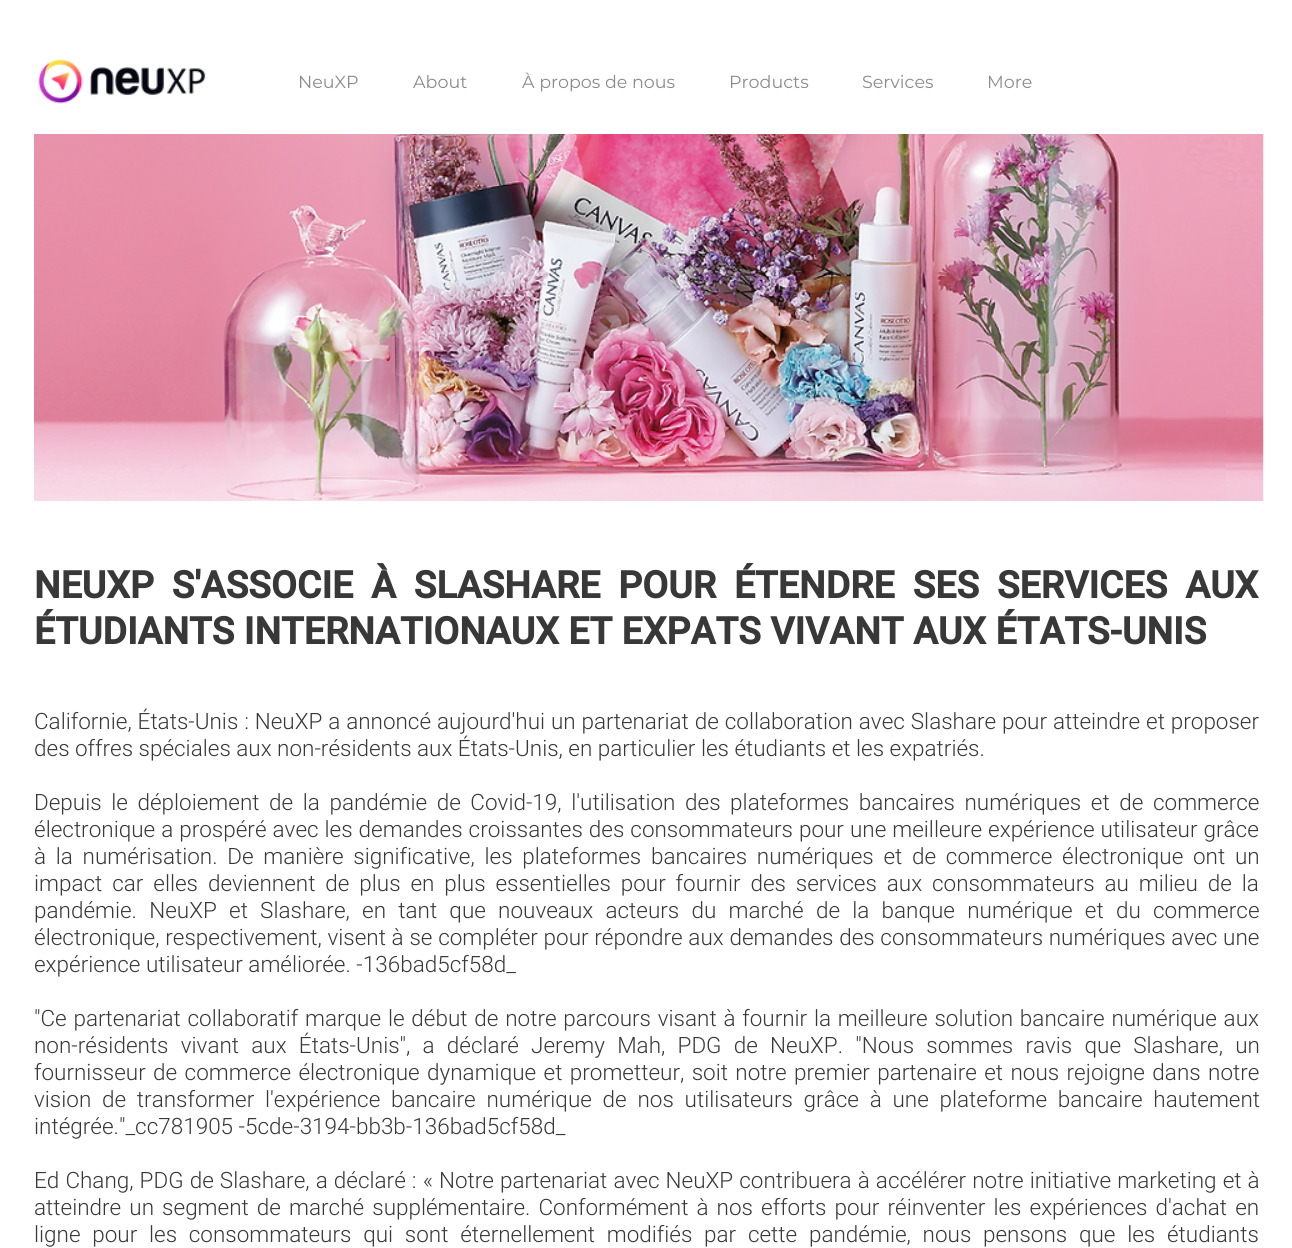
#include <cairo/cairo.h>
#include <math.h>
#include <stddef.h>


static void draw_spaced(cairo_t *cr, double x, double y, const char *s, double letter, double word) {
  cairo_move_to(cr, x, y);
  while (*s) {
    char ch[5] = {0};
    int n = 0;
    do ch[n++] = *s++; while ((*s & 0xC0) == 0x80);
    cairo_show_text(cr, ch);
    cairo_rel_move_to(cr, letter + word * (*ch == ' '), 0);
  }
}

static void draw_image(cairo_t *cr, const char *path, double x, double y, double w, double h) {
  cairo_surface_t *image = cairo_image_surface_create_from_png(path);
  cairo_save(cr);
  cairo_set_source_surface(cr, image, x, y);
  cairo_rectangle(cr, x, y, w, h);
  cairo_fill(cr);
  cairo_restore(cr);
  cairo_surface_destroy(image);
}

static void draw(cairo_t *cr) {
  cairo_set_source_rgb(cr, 1, 1, 1);
  cairo_paint(cr);
  draw_image(cr, "images/1.png", 38, 59, 168, 45);
  draw_image(cr, "images/2.png", 34, 134, 1230, 367);
  cairo_select_font_face(cr, "Montserrat", CAIRO_FONT_SLANT_NORMAL, CAIRO_FONT_WEIGHT_NORMAL);
  cairo_set_font_size(cr, 17.5);
  cairo_set_source_rgb(cr, 140 / 255.0, 139 / 255.0, 139 / 255.0);
  cairo_move_to(cr, 298, 88);
  cairo_show_text(cr, "NeuXP");
  cairo_move_to(cr, 413, 88);
  cairo_show_text(cr, "About");
  cairo_move_to(cr, 522, 88);
  cairo_show_text(cr, "À propos de nous");
  cairo_move_to(cr, 729, 88);
  cairo_show_text(cr, "Products");
  cairo_move_to(cr, 862, 88);
  cairo_show_text(cr, "Services");
  cairo_move_to(cr, 987, 88);
  cairo_show_text(cr, "More");
  cairo_select_font_face(cr, "Roboto", CAIRO_FONT_SLANT_NORMAL, CAIRO_FONT_WEIGHT_BOLD);
  cairo_set_font_size(cr, 37.5);
  cairo_set_source_rgb(cr, 56 / 255.0, 56 / 255.0, 56 / 255.0);
  draw_spaced(cr, 34, 598, "NEUXP S'ASSOCIE À SLASHARE POUR ÉTENDRE SES SERVICES AUX", 0, 8.5);
  cairo_move_to(cr, 34, 644);
  cairo_show_text(cr, "ÉTUDIANTS INTERNATIONAUX ET EXPATS VIVANT AUX ÉTATS-UNIS");
  cairo_select_font_face(cr, "Roboto Light", CAIRO_FONT_SLANT_NORMAL, CAIRO_FONT_WEIGHT_NORMAL);
  cairo_set_font_size(cr, 22.5);
  draw_spaced(cr, 34, 729, "Californie, États-Unis : NeuXP a annoncé aujourd'hui un partenariat de collaboration avec Slashare pour atteindre et proposer", 0, 0.4);
  cairo_move_to(cr, 34, 756);
  cairo_show_text(cr, "des offres spéciales aux non-résidents aux États-Unis, en particulier les étudiants et les expatriés.");
  draw_spaced(cr, 34, 810, "Depuis le déploiement de la pandémie de Covid-19, l'utilisation des plateformes bancaires numériques et de commerce", 0, 4.1);
  draw_spaced(cr, 34, 837, "électronique a prospéré avec les demandes croissantes des consommateurs pour une meilleure expérience utilisateur grâce", 0, 0.5);
  draw_spaced(cr, 34, 864, "à la numérisation. De manière significative, les plateformes bancaires numériques et de commerce électronique ont un", 0, 4.25);
  draw_spaced(cr, 34, 891, "impact car elles deviennent de plus en plus essentielles pour fournir des services aux consommateurs au milieu de la", 0, 4.4);
  draw_spaced(cr, 34, 918, "pandémie. NeuXP et Slashare, en tant que nouveaux acteurs du marché de la banque numérique et du commerce", 0, 6.75);
  draw_spaced(cr, 34, 945, "électronique, respectivement, visent à se compléter pour répondre aux demandes des consommateurs numériques avec une", 0, 0.25);
  cairo_move_to(cr, 34, 972);
  cairo_show_text(cr, "expérience utilisateur améliorée. -136bad5cf58d_");
  draw_spaced(cr, 34, 1026, "\"Ce partenariat collaboratif marque le début de notre parcours visant à fournir la meilleure solution bancaire numérique aux", 0, 1.3);
  draw_spaced(cr, 34, 1053, "non-résidents vivant aux États-Unis\", a déclaré Jeremy Mah, PDG de NeuXP. \"Nous sommes ravis que Slashare, un", 0, 6.75);
  draw_spaced(cr, 34, 1080, "fournisseur de commerce électronique dynamique et prometteur, soit notre premier partenaire et nous rejoigne dans notre", 0, 1.9);
  draw_spaced(cr, 34, 1107, "vision de transformer l'expérience bancaire numérique de nos utilisateurs grâce à une plateforme bancaire hautement", 0, 5.25);
  cairo_move_to(cr, 34, 1134);
  cairo_show_text(cr, "intégrée.\"_cc781905 -5cde-3194-bb3b-136bad5cf58d_");
  draw_spaced(cr, 34, 1188, "Ed Chang, PDG de Slashare, a déclaré : « Notre partenariat avec NeuXP contribuera à accélérer notre initiative marketing et à", 0, 0.6);
  draw_spaced(cr, 34, 1215, "atteindre un segment de marché supplémentaire. Conformément à nos efforts pour réinventer les expériences d'achat en", 0, 2.6);
  draw_spaced(cr, 34, 1242, "ligne pour les consommateurs qui sont éternellement modifiés par cette pandémie, nous pensons que les étudiants", 0, 6.25);
}

int main(void) {
  cairo_surface_t *surface = cairo_image_surface_create(CAIRO_FORMAT_RGB24, 1292, 1248);
  cairo_t *cr = cairo_create(surface);
  cairo_font_options_t *options = cairo_font_options_create();
  cairo_font_options_set_hint_metrics(options, CAIRO_HINT_METRICS_OFF);
  cairo_font_options_set_hint_style(options, CAIRO_HINT_STYLE_NONE);
  cairo_set_font_options(cr, options);
  cairo_set_miter_limit(cr, 4);
  draw(cr);
  cairo_surface_write_to_png(surface, "out.png");
  cairo_font_options_destroy(options);
  cairo_destroy(cr);
  cairo_surface_destroy(surface);
  return 0;
}
